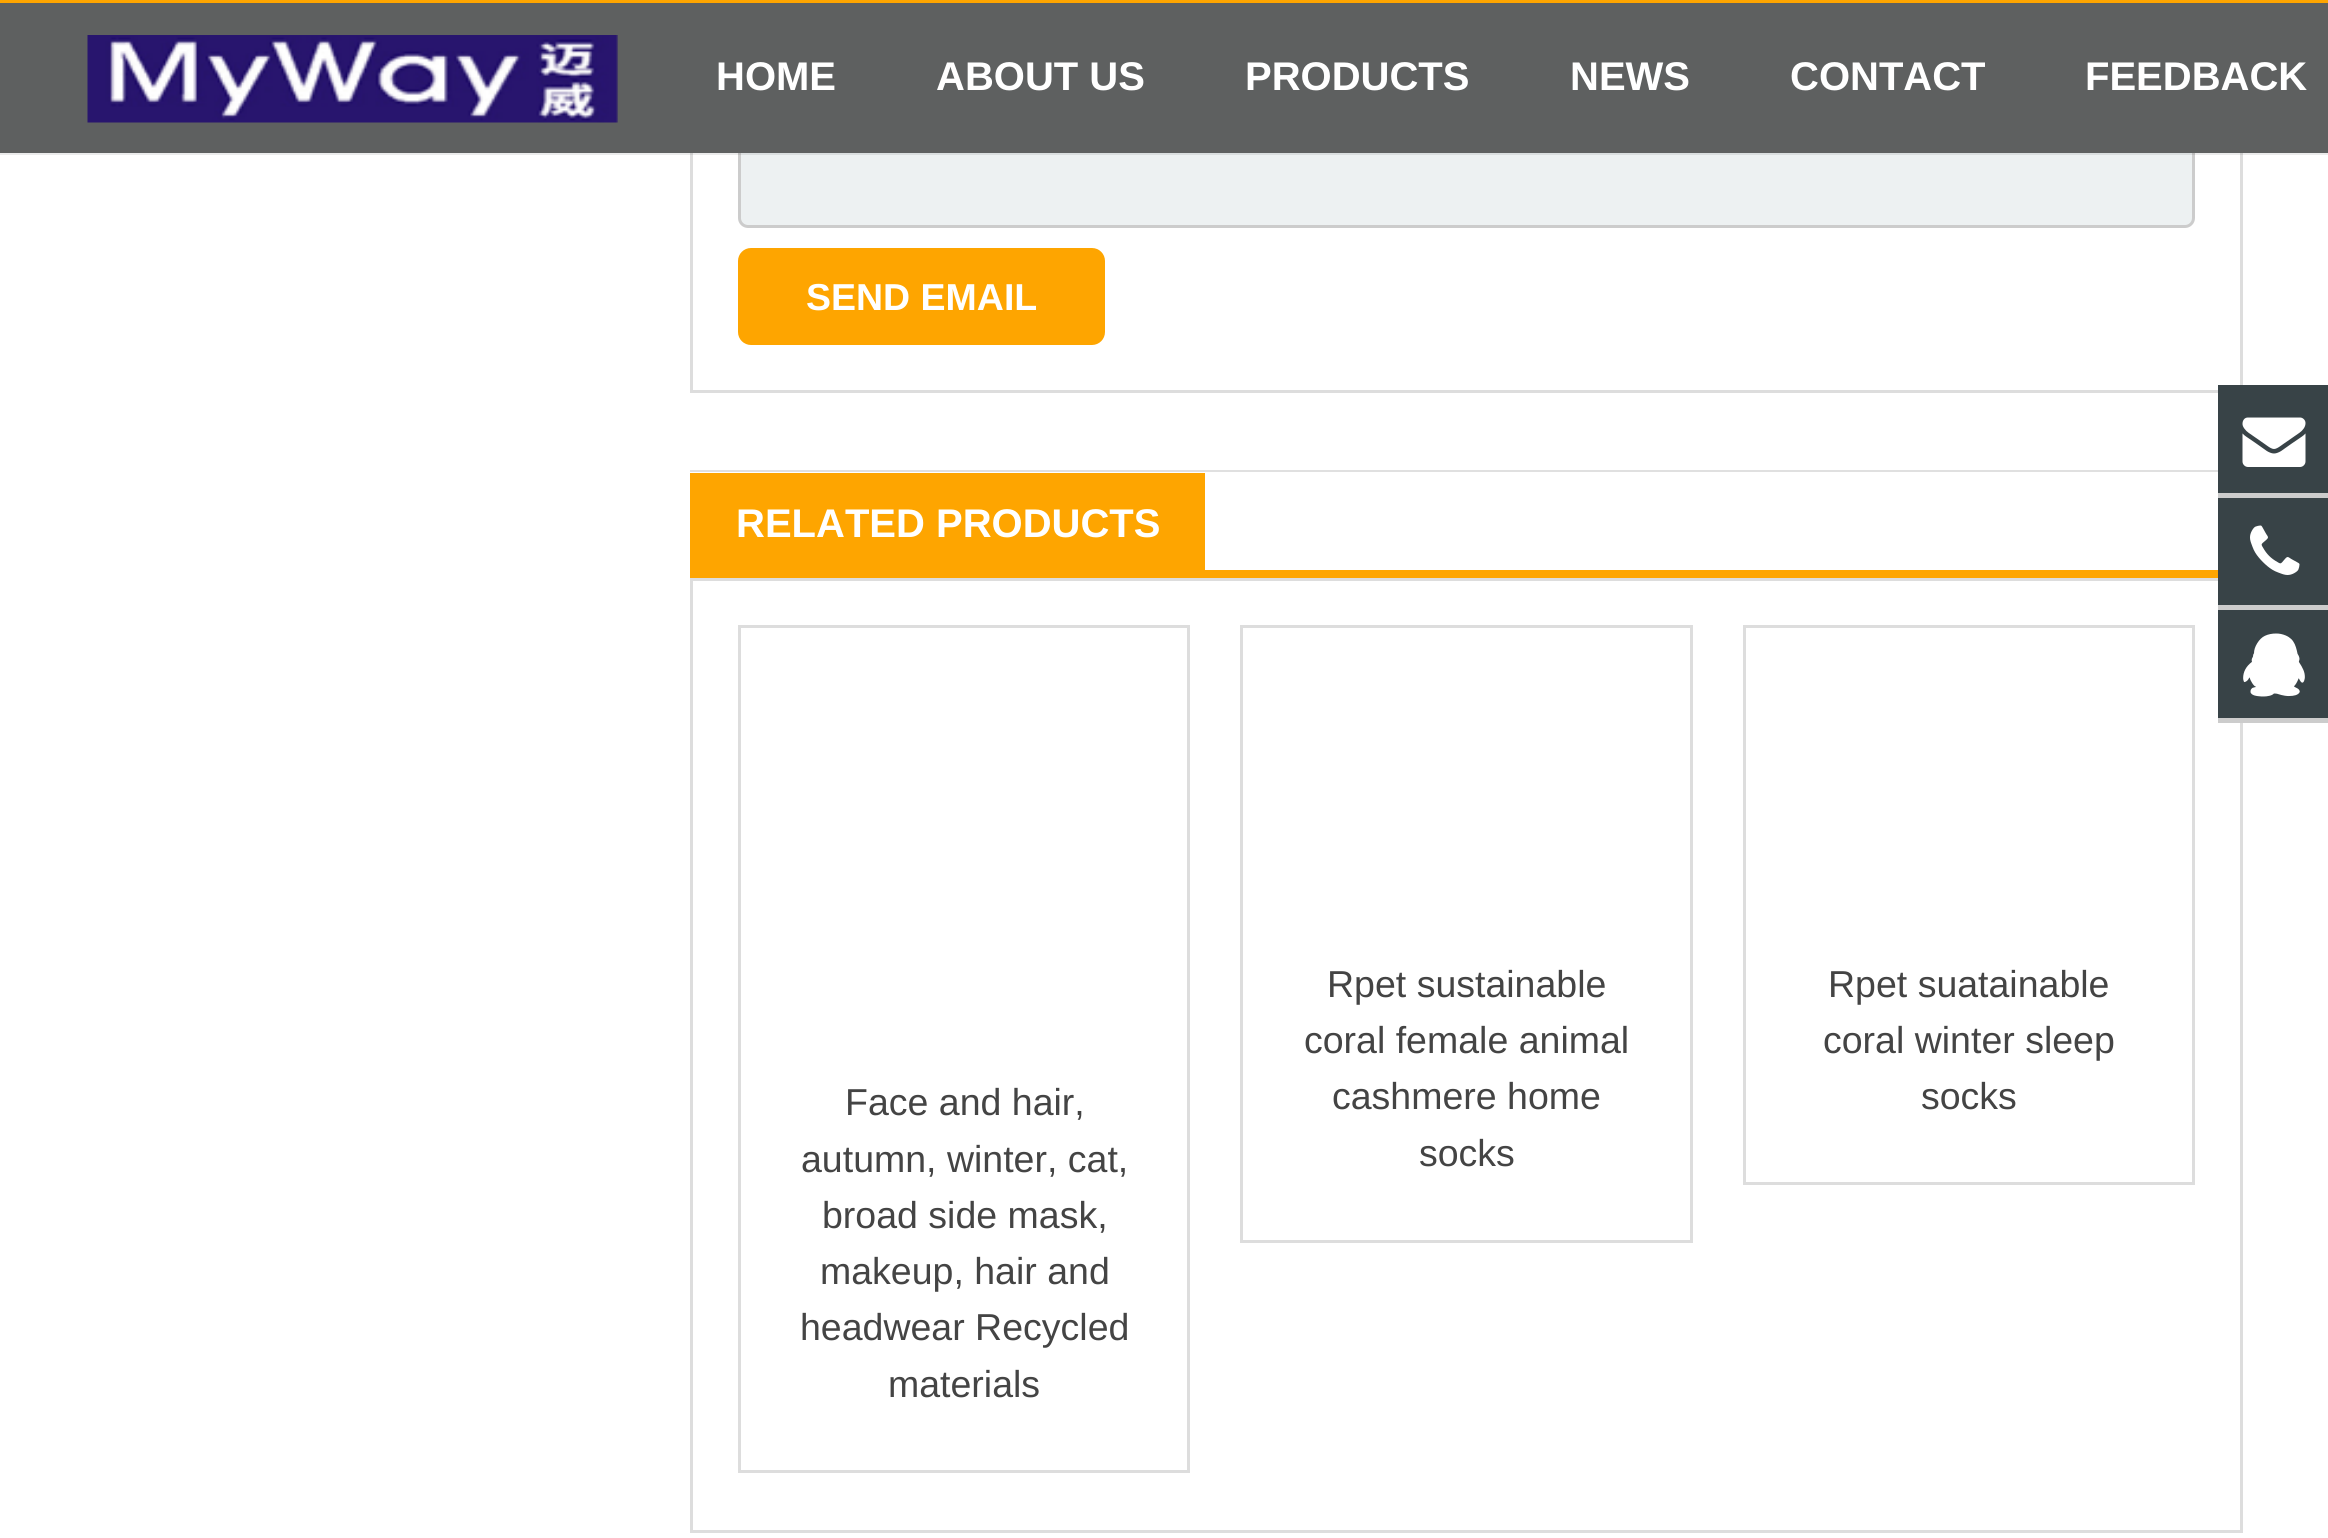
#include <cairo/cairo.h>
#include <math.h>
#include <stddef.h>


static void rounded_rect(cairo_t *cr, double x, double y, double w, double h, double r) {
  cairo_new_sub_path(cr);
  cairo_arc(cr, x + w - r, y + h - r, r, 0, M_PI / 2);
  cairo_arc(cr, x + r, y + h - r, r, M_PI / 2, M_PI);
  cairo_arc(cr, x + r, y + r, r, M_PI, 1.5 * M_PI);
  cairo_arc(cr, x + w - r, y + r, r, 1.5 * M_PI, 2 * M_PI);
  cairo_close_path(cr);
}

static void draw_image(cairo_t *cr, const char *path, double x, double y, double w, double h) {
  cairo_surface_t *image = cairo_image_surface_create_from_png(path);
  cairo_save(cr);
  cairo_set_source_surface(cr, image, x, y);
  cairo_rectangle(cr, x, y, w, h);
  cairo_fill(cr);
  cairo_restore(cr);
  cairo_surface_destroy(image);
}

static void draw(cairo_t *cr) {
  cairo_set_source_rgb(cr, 1, 1, 1);
  cairo_paint(cr);
  cairo_rectangle(cr, 691.5, -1.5, 1550, 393);
  cairo_set_source_rgb(cr, 221 / 255.0, 221 / 255.0, 221 / 255.0);
  cairo_set_line_width(cr, 3);
  cairo_stroke(cr);
  cairo_set_source_rgb(cr, 254 / 255.0, 165 / 255.0, 0);
  cairo_rectangle(cr, 0, 0, 2328, 3);
  cairo_fill(cr);
  cairo_set_source_rgb(cr, 237 / 255.0, 241 / 255.0, 242 / 255.0);
  rounded_rect(cr, 739.5, 131.5, 1454, 95, 8.5);
  cairo_fill_preserve(cr);
  cairo_set_source_rgb(cr, 204 / 255.0, 204 / 255.0, 204 / 255.0);
  cairo_stroke(cr);
  cairo_set_source_rgba(cr, 0, 0, 0, 0.08);
  cairo_rectangle(cr, 0, 153, 2328, 2);
  cairo_fill(cr);
  cairo_set_source_rgb(cr, 94 / 255.0, 96 / 255.0, 96 / 255.0);
  cairo_rectangle(cr, 0, 3, 2328, 150);
  cairo_fill(cr);
  draw_image(cr, "images/1.png", 87, 35, 531, 88);
  cairo_set_source_rgb(cr, 254 / 255.0, 165 / 255.0, 0);
  rounded_rect(cr, 738, 248, 367, 97, 13);
  cairo_fill(cr);
  cairo_set_source_rgb(cr, 224 / 255.0, 224 / 255.0, 224 / 255.0);
  cairo_new_path(cr);
  cairo_move_to(cr, 690, 470);
  cairo_line_to(cr, 2242, 470);
  cairo_line_to(cr, 2240, 472);
  cairo_line_to(cr, 690, 472);
  cairo_close_path(cr);
  cairo_fill(cr);
  cairo_set_source_rgb(cr, 254 / 255.0, 165 / 255.0, 0);
  cairo_new_path(cr);
  cairo_move_to(cr, 2242, 578);
  cairo_line_to(cr, 690, 578);
  cairo_line_to(cr, 690, 570);
  cairo_line_to(cr, 2240, 570);
  cairo_close_path(cr);
  cairo_fill(cr);
  cairo_rectangle(cr, 690, 473, 515, 97);
  cairo_fill(cr);
  cairo_rectangle(cr, 691.5, 579.5, 1550, 952);
  cairo_set_source_rgb(cr, 221 / 255.0, 221 / 255.0, 221 / 255.0);
  cairo_stroke(cr);
  cairo_rectangle(cr, 1241.5, 626.5, 450, 615);
  cairo_stroke(cr);
  cairo_rectangle(cr, 1744.5, 626.5, 449, 557);
  cairo_stroke(cr);
  cairo_rectangle(cr, 739.5, 626.5, 449, 845);
  cairo_stroke(cr);
  cairo_set_source_rgb(cr, 56 / 255.0, 67 / 255.0, 71 / 255.0);
  cairo_rectangle(cr, 2218, 385, 110, 333);
  cairo_fill(cr);
  cairo_set_source_rgb(cr, 204 / 255.0, 204 / 255.0, 204 / 255.0);
  cairo_rectangle(cr, 2218, 493, 110, 5);
  cairo_fill(cr);
  draw_image(cr, "images/2.png", 2242, 417, 64, 50);
  cairo_rectangle(cr, 2218, 605, 110, 5);
  cairo_fill(cr);
  draw_image(cr, "images/3.png", 2250, 525, 50, 50);
  cairo_rectangle(cr, 2218, 718, 110, 5);
  cairo_fill(cr);
  draw_image(cr, "images/4.png", 2243, 633, 62, 64);
  cairo_select_font_face(cr, "Liberation Sans", CAIRO_FONT_SLANT_NORMAL, CAIRO_FONT_WEIGHT_BOLD);
  cairo_set_font_size(cr, 40);
  cairo_set_source_rgb(cr, 1, 1, 1);
  cairo_move_to(cr, 716, 90);
  cairo_show_text(cr, "HOME");
  cairo_move_to(cr, 936, 90);
  cairo_show_text(cr, "ABOUT US");
  cairo_move_to(cr, 1245, 90);
  cairo_show_text(cr, "PRODUCTS");
  cairo_move_to(cr, 1570, 90);
  cairo_show_text(cr, "NEWS");
  cairo_move_to(cr, 1790, 90);
  cairo_show_text(cr, "CONTACT");
  cairo_move_to(cr, 2085, 90);
  cairo_show_text(cr, "FEEDBACK");
  cairo_set_font_size(cr, 37.5);
  cairo_move_to(cr, 806, 310);
  cairo_show_text(cr, "SEND EMAIL");
  cairo_set_font_size(cr, 40);
  cairo_move_to(cr, 736, 537);
  cairo_show_text(cr, "RELATED PRODUCTS");
  cairo_select_font_face(cr, "Liberation Sans", CAIRO_FONT_SLANT_NORMAL, CAIRO_FONT_WEIGHT_NORMAL);
  cairo_set_font_size(cr, 37.5);
  cairo_set_source_rgb(cr, 68 / 255.0, 68 / 255.0, 68 / 255.0);
  cairo_move_to(cr, 1327, 997);
  cairo_show_text(cr, "Rpet sustainable");
  cairo_move_to(cr, 1304, 1053);
  cairo_show_text(cr, "coral female animal");
  cairo_move_to(cr, 1332, 1109);
  cairo_show_text(cr, "cashmere home");
  cairo_move_to(cr, 1419, 1166);
  cairo_show_text(cr, "socks");
  cairo_move_to(cr, 1828, 997);
  cairo_show_text(cr, "Rpet suatainable");
  cairo_move_to(cr, 1823, 1053);
  cairo_show_text(cr, "coral winter sleep");
  cairo_move_to(cr, 1921, 1109);
  cairo_show_text(cr, "socks");
  cairo_move_to(cr, 845, 1115);
  cairo_show_text(cr, "Face and hair,");
  cairo_move_to(cr, 801, 1172);
  cairo_show_text(cr, "autumn, winter, cat,");
  cairo_move_to(cr, 822, 1228);
  cairo_show_text(cr, "broad side mask,");
  cairo_move_to(cr, 820, 1284);
  cairo_show_text(cr, "makeup, hair and");
  cairo_move_to(cr, 800, 1340);
  cairo_show_text(cr, "headwear Recycled");
  cairo_move_to(cr, 888, 1397);
  cairo_show_text(cr, "materials");
}

int main(void) {
  cairo_surface_t *surface = cairo_image_surface_create(CAIRO_FORMAT_RGB24, 2328, 1538);
  cairo_t *cr = cairo_create(surface);
  cairo_font_options_t *options = cairo_font_options_create();
  cairo_font_options_set_hint_metrics(options, CAIRO_HINT_METRICS_OFF);
  cairo_font_options_set_hint_style(options, CAIRO_HINT_STYLE_NONE);
  cairo_set_font_options(cr, options);
  cairo_set_miter_limit(cr, 4);
  draw(cr);
  cairo_surface_write_to_png(surface, "out.png");
  cairo_font_options_destroy(options);
  cairo_destroy(cr);
  cairo_surface_destroy(surface);
  return 0;
}
